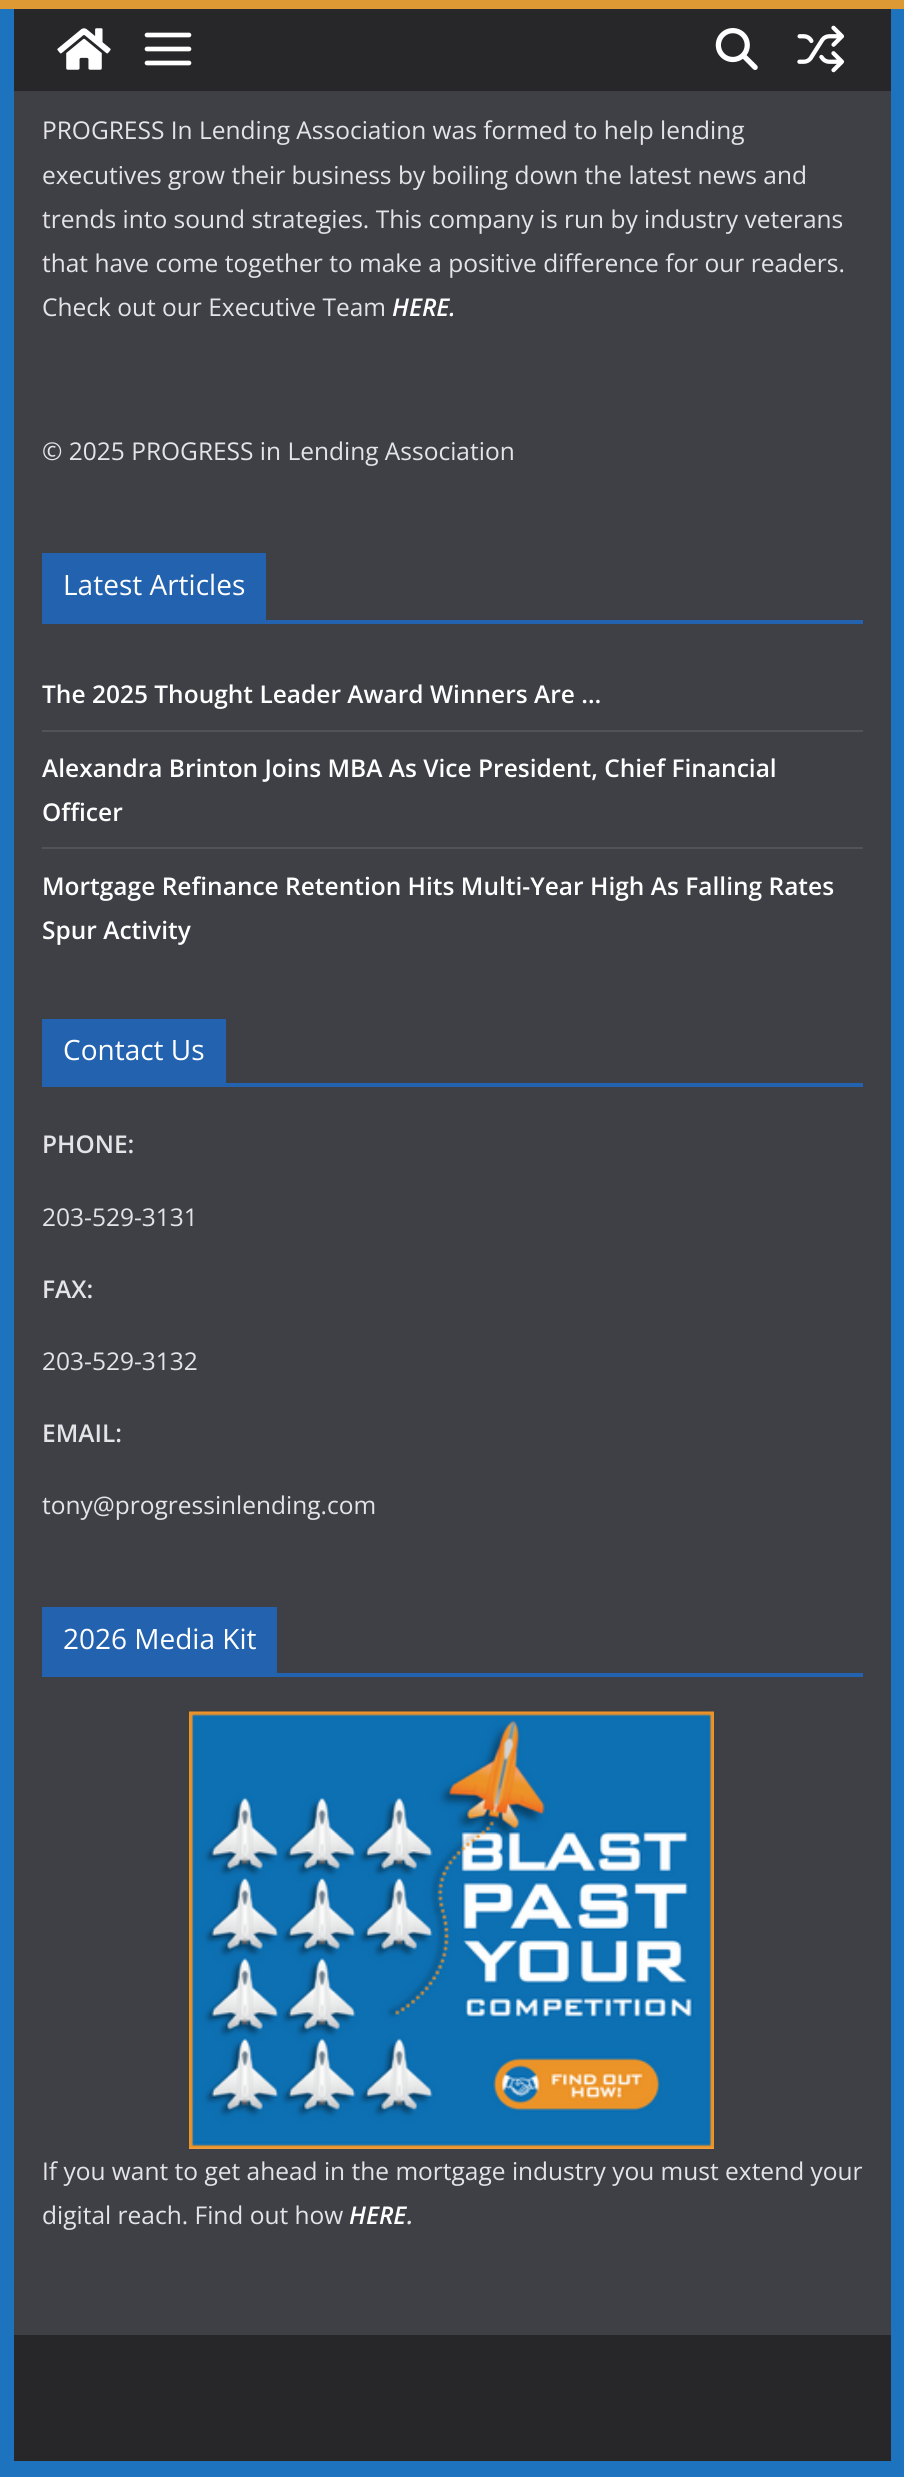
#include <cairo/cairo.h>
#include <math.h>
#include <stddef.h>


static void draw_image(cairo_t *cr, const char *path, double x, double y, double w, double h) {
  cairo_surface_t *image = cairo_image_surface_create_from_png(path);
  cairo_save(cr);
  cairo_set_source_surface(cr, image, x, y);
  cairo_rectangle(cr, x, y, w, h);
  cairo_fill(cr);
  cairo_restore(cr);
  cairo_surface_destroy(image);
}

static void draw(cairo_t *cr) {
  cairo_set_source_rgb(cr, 30 / 255.0, 115 / 255.0, 190 / 255.0);
  cairo_paint(cr);
  cairo_set_source_rgb(cr, 221 / 255.0, 153 / 255.0, 51 / 255.0);
  cairo_rectangle(cr, 0, 0, 904, 9);
  cairo_fill(cr);
  cairo_set_source_rgb(cr, 39 / 255.0, 39 / 255.0, 42 / 255.0);
  cairo_rectangle(cr, 14, 9, 877, 82);
  cairo_fill(cr);
  draw_image(cr, "images/1.png", 57, 28, 54, 42);
  draw_image(cr, "images/2.png", 144, 32, 48, 34);
  draw_image(cr, "images/3.png", 715, 28, 43, 42);
  draw_image(cr, "images/4.png", 797, 25, 48, 48);
  cairo_set_source_rgb(cr, 63 / 255.0, 63 / 255.0, 70 / 255.0);
  cairo_rectangle(cr, 14, 91, 877, 2244);
  cairo_fill(cr);
  cairo_set_source_rgb(cr, 35 / 255.0, 98 / 255.0, 175 / 255.0);
  cairo_rectangle(cr, 42, 620, 821, 4);
  cairo_fill(cr);
  cairo_rectangle(cr, 42, 553, 224, 67);
  cairo_fill(cr);
  cairo_set_source_rgb(cr, 82 / 255.0, 82 / 255.0, 91 / 255.0);
  cairo_rectangle(cr, 42, 730, 821, 2);
  cairo_fill(cr);
  cairo_rectangle(cr, 42, 847, 821, 2);
  cairo_fill(cr);
  cairo_set_source_rgb(cr, 35 / 255.0, 98 / 255.0, 175 / 255.0);
  cairo_rectangle(cr, 42, 1083, 821, 4);
  cairo_fill(cr);
  cairo_rectangle(cr, 42, 1019, 184, 64);
  cairo_fill(cr);
  cairo_rectangle(cr, 42, 1673, 821, 4);
  cairo_fill(cr);
  cairo_rectangle(cr, 42, 1607, 235, 66);
  cairo_fill(cr);
  draw_image(cr, "images/5.png", 189, 1711, 525, 438);
  cairo_set_source_rgb(cr, 39 / 255.0, 39 / 255.0, 42 / 255.0);
  cairo_rectangle(cr, 14, 2335, 877, 126);
  cairo_fill(cr);
  cairo_select_font_face(cr, "Open Sans", CAIRO_FONT_SLANT_NORMAL, CAIRO_FONT_WEIGHT_NORMAL);
  cairo_set_font_size(cr, 24.5);
  cairo_set_source_rgb(cr, 228 / 255.0, 228 / 255.0, 231 / 255.0);
  cairo_move_to(cr, 42, 139);
  cairo_show_text(cr, "PROGRESS In Lending Association was formed to help lending");
  cairo_move_to(cr, 42, 184);
  cairo_show_text(cr, "executives grow their business by boiling down the latest news and");
  cairo_move_to(cr, 42, 228);
  cairo_show_text(cr, "trends into sound strategies. This company is run by industry veterans");
  cairo_move_to(cr, 42, 272);
  cairo_show_text(cr, "that have come together to make a positive difference for our readers.");
  cairo_move_to(cr, 42, 316);
  cairo_show_text(cr, "Check out our Executive Team");
  cairo_select_font_face(cr, "Open Sans SemiBold", CAIRO_FONT_SLANT_ITALIC, CAIRO_FONT_WEIGHT_NORMAL);
  cairo_set_source_rgb(cr, 1, 1, 1);
  cairo_move_to(cr, 392, 316);
  cairo_show_text(cr, "HERE.");
  cairo_select_font_face(cr, "Open Sans", CAIRO_FONT_SLANT_NORMAL, CAIRO_FONT_WEIGHT_NORMAL);
  cairo_set_source_rgb(cr, 228 / 255.0, 228 / 255.0, 231 / 255.0);
  cairo_move_to(cr, 42, 460);
  cairo_show_text(cr, "© 2025 PROGRESS in Lending Association");
  cairo_set_font_size(cr, 28);
  cairo_set_source_rgb(cr, 1, 1, 1);
  cairo_move_to(cr, 63, 595);
  cairo_show_text(cr, "Latest Articles");
  cairo_select_font_face(cr, "Open Sans SemiBold", CAIRO_FONT_SLANT_NORMAL, CAIRO_FONT_WEIGHT_NORMAL);
  cairo_set_font_size(cr, 24.5);
  cairo_move_to(cr, 42, 703);
  cairo_show_text(cr, "The 2025 Thought Leader Award Winners Are …");
  cairo_move_to(cr, 42, 777);
  cairo_show_text(cr, "Alexandra Brinton Joins MBA As Vice President, Chief Financial");
  cairo_move_to(cr, 42, 821);
  cairo_show_text(cr, "Officer");
  cairo_move_to(cr, 42, 895);
  cairo_show_text(cr, "Mortgage Refinance Retention Hits Multi-Year High As Falling Rates");
  cairo_move_to(cr, 42, 939);
  cairo_show_text(cr, "Spur Activity");
  cairo_select_font_face(cr, "Open Sans", CAIRO_FONT_SLANT_NORMAL, CAIRO_FONT_WEIGHT_NORMAL);
  cairo_set_font_size(cr, 28);
  cairo_move_to(cr, 63, 1060);
  cairo_show_text(cr, "Contact Us");
  cairo_select_font_face(cr, "Open Sans SemiBold", CAIRO_FONT_SLANT_NORMAL, CAIRO_FONT_WEIGHT_NORMAL);
  cairo_set_font_size(cr, 24.5);
  cairo_set_source_rgb(cr, 228 / 255.0, 228 / 255.0, 231 / 255.0);
  cairo_move_to(cr, 42, 1153);
  cairo_show_text(cr, "PHONE:");
  cairo_select_font_face(cr, "Open Sans", CAIRO_FONT_SLANT_NORMAL, CAIRO_FONT_WEIGHT_NORMAL);
  cairo_move_to(cr, 42, 1226);
  cairo_show_text(cr, "203-529-3131");
  cairo_select_font_face(cr, "Open Sans SemiBold", CAIRO_FONT_SLANT_NORMAL, CAIRO_FONT_WEIGHT_NORMAL);
  cairo_move_to(cr, 42, 1298);
  cairo_show_text(cr, "FAX:");
  cairo_select_font_face(cr, "Open Sans", CAIRO_FONT_SLANT_NORMAL, CAIRO_FONT_WEIGHT_NORMAL);
  cairo_move_to(cr, 42, 1370);
  cairo_show_text(cr, "203-529-3132");
  cairo_select_font_face(cr, "Open Sans SemiBold", CAIRO_FONT_SLANT_NORMAL, CAIRO_FONT_WEIGHT_NORMAL);
  cairo_move_to(cr, 42, 1442);
  cairo_show_text(cr, "EMAIL:");
  cairo_select_font_face(cr, "Open Sans", CAIRO_FONT_SLANT_NORMAL, CAIRO_FONT_WEIGHT_NORMAL);
  cairo_move_to(cr, 42, 1514);
  cairo_show_text(cr, "tony@progressinlending.com");
  cairo_set_font_size(cr, 28);
  cairo_set_source_rgb(cr, 1, 1, 1);
  cairo_move_to(cr, 63, 1649);
  cairo_show_text(cr, "2026 Media Kit");
  cairo_set_font_size(cr, 24.5);
  cairo_set_source_rgb(cr, 228 / 255.0, 228 / 255.0, 231 / 255.0);
  cairo_move_to(cr, 42, 2180);
  cairo_show_text(cr, "If you want to get ahead in the mortgage industry you must extend your");
  cairo_move_to(cr, 42, 2224);
  cairo_show_text(cr, "digital reach. Find out how");
  cairo_select_font_face(cr, "Open Sans SemiBold", CAIRO_FONT_SLANT_ITALIC, CAIRO_FONT_WEIGHT_NORMAL);
  cairo_set_source_rgb(cr, 1, 1, 1);
  cairo_move_to(cr, 349, 2224);
  cairo_show_text(cr, "HERE");
  cairo_set_source_rgb(cr, 228 / 255.0, 228 / 255.0, 231 / 255.0);
  cairo_move_to(cr, 407, 2224);
  cairo_show_text(cr, ".");
}

int main(void) {
  cairo_surface_t *surface = cairo_image_surface_create(CAIRO_FORMAT_RGB24, 904, 2477);
  cairo_t *cr = cairo_create(surface);
  cairo_font_options_t *options = cairo_font_options_create();
  cairo_font_options_set_hint_metrics(options, CAIRO_HINT_METRICS_OFF);
  cairo_font_options_set_hint_style(options, CAIRO_HINT_STYLE_NONE);
  cairo_set_font_options(cr, options);
  cairo_set_miter_limit(cr, 4);
  draw(cr);
  cairo_surface_write_to_png(surface, "out.png");
  cairo_font_options_destroy(options);
  cairo_destroy(cr);
  cairo_surface_destroy(surface);
  return 0;
}
